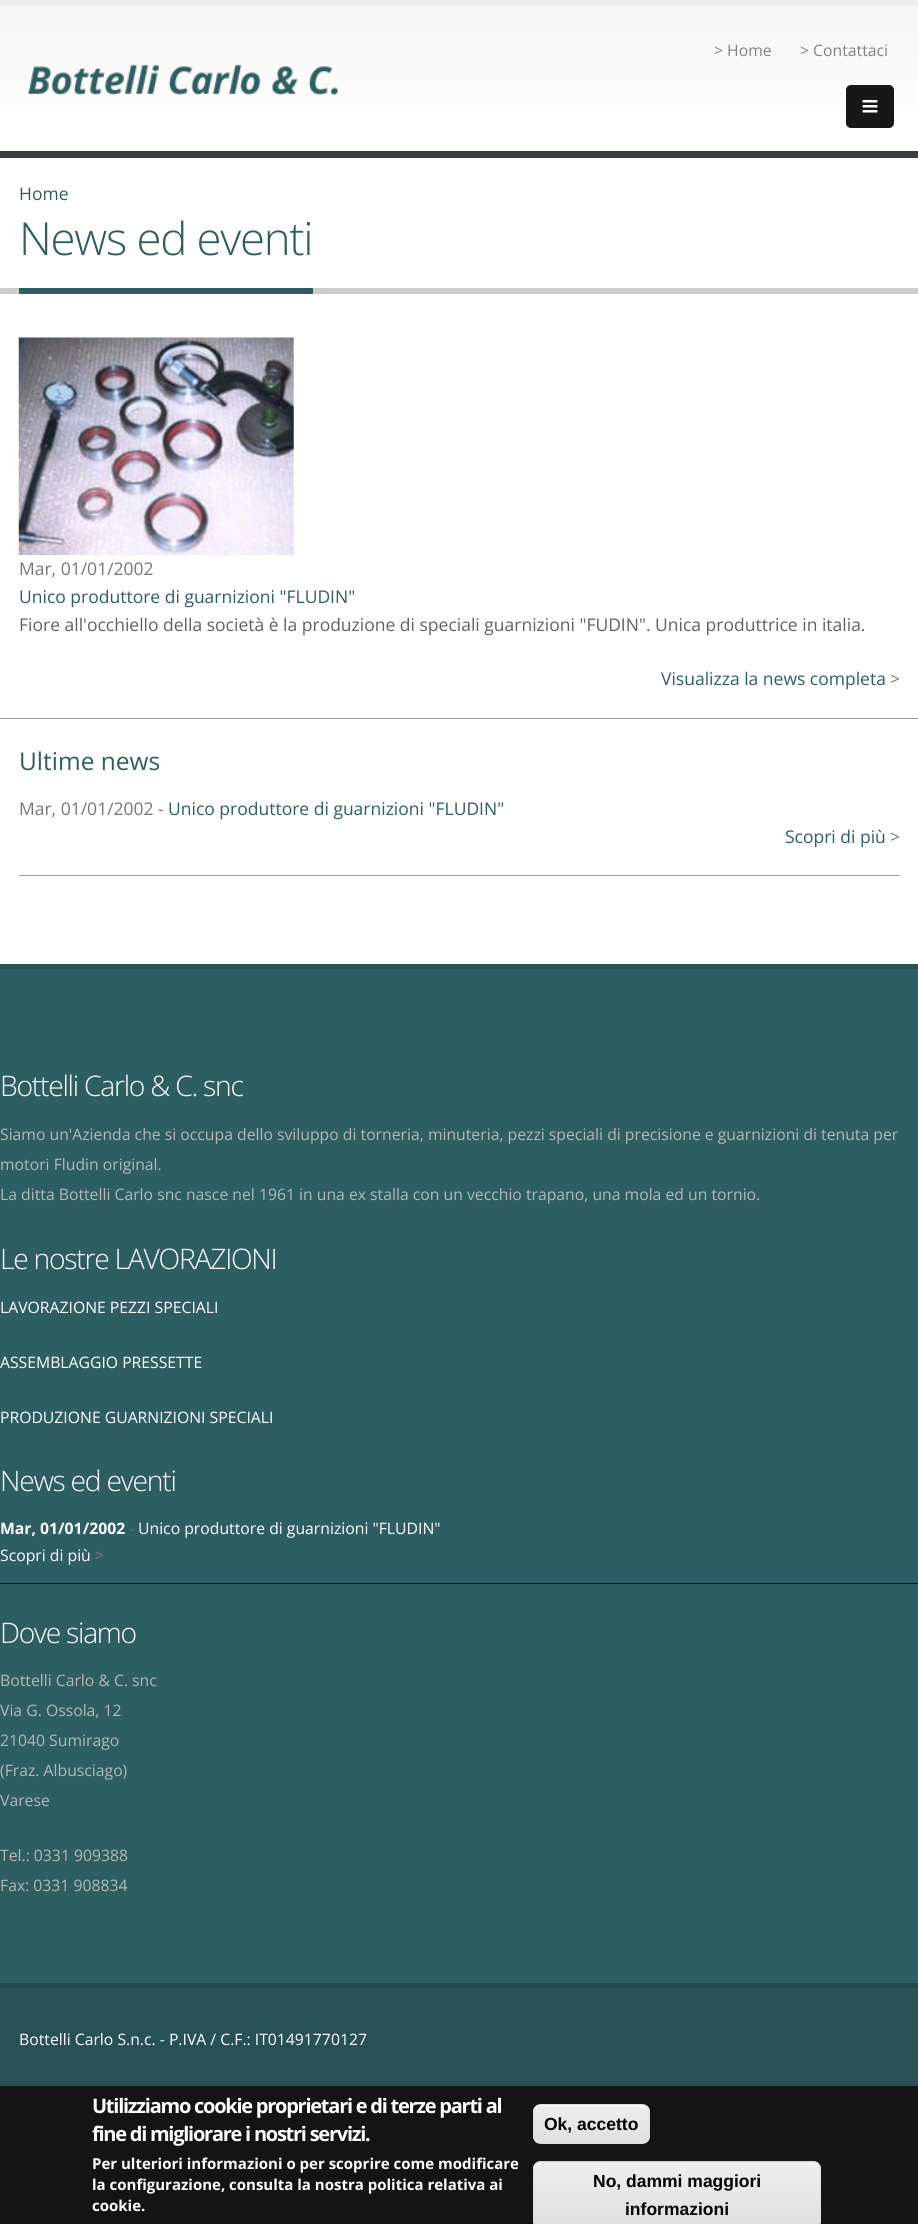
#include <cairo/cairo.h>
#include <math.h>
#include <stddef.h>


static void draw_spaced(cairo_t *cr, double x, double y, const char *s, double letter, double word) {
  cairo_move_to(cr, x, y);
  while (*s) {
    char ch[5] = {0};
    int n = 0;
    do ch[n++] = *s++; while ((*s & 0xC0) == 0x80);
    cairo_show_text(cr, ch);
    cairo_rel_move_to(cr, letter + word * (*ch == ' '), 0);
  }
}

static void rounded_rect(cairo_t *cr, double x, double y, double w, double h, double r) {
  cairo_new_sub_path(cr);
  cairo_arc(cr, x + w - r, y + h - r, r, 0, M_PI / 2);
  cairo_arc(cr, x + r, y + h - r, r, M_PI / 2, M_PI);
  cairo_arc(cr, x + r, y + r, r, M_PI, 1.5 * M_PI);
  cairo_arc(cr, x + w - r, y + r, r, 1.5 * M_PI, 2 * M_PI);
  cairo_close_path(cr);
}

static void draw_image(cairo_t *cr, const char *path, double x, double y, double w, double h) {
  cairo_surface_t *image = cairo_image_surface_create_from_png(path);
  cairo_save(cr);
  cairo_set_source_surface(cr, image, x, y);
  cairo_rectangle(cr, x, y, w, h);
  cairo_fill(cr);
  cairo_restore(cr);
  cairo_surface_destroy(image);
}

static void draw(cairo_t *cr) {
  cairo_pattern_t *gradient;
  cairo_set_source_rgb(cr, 1, 1, 1);
  cairo_paint(cr);
  gradient = cairo_pattern_create_linear(459, 6.2, 459, 151);
  cairo_pattern_add_color_stop_rgba(gradient, 0, 246 / 255.0, 246 / 255.0, 246 / 255.0, 1);
  cairo_pattern_add_color_stop_rgba(gradient, 1, 1, 1, 1, 1);
  cairo_set_source(cr, gradient);
  cairo_pattern_destroy(gradient);
  cairo_rectangle(cr, 0, 6, 918, 105);
  cairo_fill(cr);
  cairo_set_source_rgb(cr, 237 / 255.0, 237 / 255.0, 237 / 255.0);
  cairo_rectangle(cr, 0, 0, 918, 6);
  cairo_fill(cr);
  draw_image(cr, "images/1.png", 27, 64, 311, 32);
  cairo_set_source_rgb(cr, 23 / 255.0, 23 / 255.0, 23 / 255.0);
  rounded_rect(cr, 846, 85, 48, 43, 5);
  cairo_fill(cr);
  draw_image(cr, "images/2.png", 862, 100, 16, 13);
  cairo_set_source_rgb(cr, 56 / 255.0, 64 / 255.0, 69 / 255.0);
  cairo_rectangle(cr, 0, 151, 918, 7);
  cairo_fill(cr);
  cairo_set_source_rgb(cr, 204 / 255.0, 204 / 255.0, 204 / 255.0);
  cairo_rectangle(cr, 0, 288, 918, 6);
  cairo_fill(cr);
  cairo_set_source_rgb(cr, 45 / 255.0, 95 / 255.0, 98 / 255.0);
  cairo_rectangle(cr, 19, 288, 294, 6);
  cairo_fill(cr);
  cairo_set_source_rgb(cr, 157 / 255.0, 157 / 255.0, 157 / 255.0);
  cairo_rectangle(cr, 0, 718, 918, 1);
  cairo_fill(cr);
  draw_image(cr, "images/3.png", 18, 337, 276, 218);
  cairo_rectangle(cr, 19, 875, 881, 1);
  cairo_fill(cr);
  cairo_set_source_rgb(cr, 45 / 255.0, 95 / 255.0, 98 / 255.0);
  cairo_rectangle(cr, 0, 969, 918, 1014);
  cairo_fill(cr);
  cairo_set_source_rgb(cr, 39 / 255.0, 81 / 255.0, 84 / 255.0);
  cairo_rectangle(cr, 0, 964, 918, 5);
  cairo_fill(cr);
  cairo_set_source_rgb(cr, 34 / 255.0, 17 / 255.0, 0);
  cairo_rectangle(cr, 0, 1583, 918, 1);
  cairo_fill(cr);
  cairo_set_source_rgb(cr, 39 / 255.0, 81 / 255.0, 84 / 255.0);
  cairo_rectangle(cr, 0, 1988, 918, 98);
  cairo_fill(cr);
  cairo_set_source_rgb(cr, 35 / 255.0, 73 / 255.0, 76 / 255.0);
  cairo_rectangle(cr, 0, 1983, 918, 5);
  cairo_fill(cr);
  cairo_set_source_rgb(cr, 20 / 255.0, 20 / 255.0, 20 / 255.0);
  cairo_rectangle(cr, 0, 2086, 918, 138);
  cairo_fill(cr);
  cairo_save(cr);
  rounded_rect(cr, 533, 2104, 117, 40, 8);
  cairo_clip(cr);
  gradient = cairo_pattern_create_linear(591, 2105, 591, 2143);
  cairo_pattern_add_color_stop_rgba(gradient, 0.05, 237 / 255.0, 237 / 255.0, 237 / 255.0, 1);
  cairo_pattern_add_color_stop_rgba(gradient, 1, 223 / 255.0, 223 / 255.0, 223 / 255.0, 1);
  cairo_set_source(cr, gradient);
  cairo_pattern_destroy(gradient);
  cairo_rectangle(cr, 533, 2105, 117, 38);
  cairo_fill(cr);
  cairo_restore(cr);
  cairo_set_source_rgb(cr, 1, 1, 1);
  cairo_new_path(cr);
  cairo_move_to(cr, 540, 2106);
  cairo_line_to(cr, 642, 2106);
  cairo_curve_to(cr, 646, 2106, 649, 2109, 649, 2112);
  cairo_curve_to(cr, 649, 2101, 632, 2105, 626, 2105);
  cairo_line_to(cr, 557, 2105);
  cairo_curve_to(cr, 551, 2105, 534, 2101, 534, 2112);
  cairo_curve_to(cr, 534, 2109, 537, 2106, 540, 2106);
  cairo_close_path(cr);
  cairo_fill(cr);
  rounded_rect(cr, 533.5, 2104.5, 116, 39, 7.5);
  cairo_set_source_rgb(cr, 220 / 255.0, 220 / 255.0, 220 / 255.0);
  cairo_set_line_width(cr, 1);
  cairo_stroke(cr);
  cairo_save(cr);
  rounded_rect(cr, 533, 2161, 288, 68, 8);
  cairo_clip(cr);
  gradient = cairo_pattern_create_linear(677, 2098, 677, 2163);
  cairo_pattern_add_color_stop_rgba(gradient, 0.05, 237 / 255.0, 237 / 255.0, 237 / 255.0, 1);
  cairo_pattern_add_color_stop_rgba(gradient, 1, 223 / 255.0, 223 / 255.0, 223 / 255.0, 1);
  cairo_set_source(cr, gradient);
  cairo_pattern_destroy(gradient);
  cairo_rectangle(cr, 533, 2161, 288, 2);
  cairo_fill(cr);
  gradient = cairo_pattern_create_linear(677, 2163, 677, 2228);
  cairo_pattern_add_color_stop_rgba(gradient, 0.05, 237 / 255.0, 237 / 255.0, 237 / 255.0, 1);
  cairo_pattern_add_color_stop_rgba(gradient, 1, 223 / 255.0, 223 / 255.0, 223 / 255.0, 1);
  cairo_set_source(cr, gradient);
  cairo_pattern_destroy(gradient);
  cairo_rectangle(cr, 533, 2163, 288, 61);
  cairo_fill(cr);
  cairo_restore(cr);
  cairo_set_source_rgb(cr, 1, 1, 1);
  cairo_new_path(cr);
  cairo_move_to(cr, 540, 2164);
  cairo_line_to(cr, 814, 2164);
  cairo_curve_to(cr, 817, 2164, 820, 2167, 820, 2170);
  cairo_line_to(cr, 820, 2169);
  cairo_curve_to(cr, 820, 2166, 817, 2163, 814, 2163);
  cairo_line_to(cr, 540, 2163);
  cairo_curve_to(cr, 537, 2163, 534, 2166, 534, 2169);
  cairo_line_to(cr, 534, 2170);
  cairo_curve_to(cr, 534, 2167, 537, 2164, 540, 2164);
  cairo_close_path(cr);
  cairo_fill(cr);
  rounded_rect(cr, 533.5, 2161.5, 287, 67, 7.5);
  cairo_set_source_rgb(cr, 220 / 255.0, 220 / 255.0, 220 / 255.0);
  cairo_stroke(cr);
  cairo_select_font_face(cr, "Open Sans", CAIRO_FONT_SLANT_NORMAL, CAIRO_FONT_WEIGHT_NORMAL);
  cairo_set_font_size(cr, 15.75);
  cairo_set_source_rgb(cr, 130 / 255.0, 130 / 255.0, 130 / 255.0);
  cairo_move_to(cr, 714, 56);
  cairo_show_text(cr, "> Home");
  cairo_move_to(cr, 800, 56);
  cairo_show_text(cr, "> Contattaci");
  cairo_set_font_size(cr, 17.5);
  cairo_set_source_rgb(cr, 45 / 255.0, 95 / 255.0, 98 / 255.0);
  cairo_move_to(cr, 19, 200);
  cairo_show_text(cr, "Home");
  cairo_select_font_face(cr, "Open Sans Light", CAIRO_FONT_SLANT_NORMAL, CAIRO_FONT_WEIGHT_NORMAL);
  cairo_set_font_size(cr, 45.5);
  draw_spaced(cr, 19, 255, "News ed eventi", -1.25, 0);
  cairo_select_font_face(cr, "Open Sans", CAIRO_FONT_SLANT_NORMAL, CAIRO_FONT_WEIGHT_NORMAL);
  cairo_set_font_size(cr, 17.5);
  cairo_set_source_rgb(cr, 119 / 255.0, 119 / 255.0, 119 / 255.0);
  cairo_move_to(cr, 19, 575);
  cairo_show_text(cr, "Mar, 01/01/2002");
  cairo_set_source_rgb(cr, 45 / 255.0, 95 / 255.0, 98 / 255.0);
  cairo_move_to(cr, 19, 603);
  cairo_show_text(cr, "Unico produttore di guarnizioni \"FLUDIN\"");
  cairo_set_source_rgb(cr, 97 / 255.0, 97 / 255.0, 97 / 255.0);
  cairo_move_to(cr, 19, 631);
  cairo_show_text(cr, "Fiore all'occhiello della società è la produzione di speciali guarnizioni \"FUDIN\". Unica produttrice in italia.");
  cairo_set_source_rgb(cr, 45 / 255.0, 95 / 255.0, 98 / 255.0);
  cairo_move_to(cr, 661, 685);
  cairo_show_text(cr, "Visualizza la news completa");
  cairo_set_source_rgb(cr, 119 / 255.0, 119 / 255.0, 119 / 255.0);
  cairo_move_to(cr, 890, 685);
  cairo_show_text(cr, ">");
  cairo_set_font_size(cr, 24.5);
  cairo_set_source_rgb(cr, 45 / 255.0, 95 / 255.0, 98 / 255.0);
  cairo_move_to(cr, 19, 770);
  cairo_show_text(cr, "Ultime news");
  cairo_set_font_size(cr, 17.5);
  cairo_set_source_rgb(cr, 119 / 255.0, 119 / 255.0, 119 / 255.0);
  cairo_move_to(cr, 19, 815);
  cairo_show_text(cr, "Mar, 01/01/2002 -");
  cairo_set_source_rgb(cr, 45 / 255.0, 95 / 255.0, 98 / 255.0);
  cairo_move_to(cr, 168, 815);
  cairo_show_text(cr, "Unico produttore di guarnizioni \"FLUDIN\"");
  cairo_move_to(cr, 785, 843);
  cairo_show_text(cr, "Scopri di più");
  cairo_set_source_rgb(cr, 119 / 255.0, 119 / 255.0, 119 / 255.0);
  cairo_move_to(cr, 890, 843);
  cairo_show_text(cr, ">");
  cairo_select_font_face(cr, "Open Sans Light", CAIRO_FONT_SLANT_NORMAL, CAIRO_FONT_WEIGHT_NORMAL);
  cairo_set_font_size(cr, 28.25);
  cairo_set_source_rgb(cr, 1, 1, 1);
  draw_spaced(cr, 0, 1096, "Bottelli Carlo & C. snc", -1.25, 0);
  cairo_select_font_face(cr, "Open Sans", CAIRO_FONT_SLANT_NORMAL, CAIRO_FONT_WEIGHT_NORMAL);
  cairo_set_font_size(cr, 15.75);
  cairo_set_source_rgb(cr, 183 / 255.0, 183 / 255.0, 183 / 255.0);
  cairo_move_to(cr, 0, 1140);
  cairo_show_text(cr, "Siamo un'Azienda che si occupa dello sviluppo di torneria, minuteria, pezzi speciali di precisione e guarnizioni di tenuta per");
  cairo_move_to(cr, 0, 1170);
  cairo_show_text(cr, "motori Fludin original.");
  cairo_move_to(cr, 0, 1200);
  cairo_show_text(cr, "La ditta Bottelli Carlo snc nasce nel 1961 in una ex stalla con un vecchio trapano, una mola ed un tornio.");
  cairo_select_font_face(cr, "Open Sans Light", CAIRO_FONT_SLANT_NORMAL, CAIRO_FONT_WEIGHT_NORMAL);
  cairo_set_font_size(cr, 28.25);
  cairo_set_source_rgb(cr, 1, 1, 1);
  draw_spaced(cr, 0, 1269, "Le nostre LAVORAZIONI", -1.25, 0);
  cairo_select_font_face(cr, "Open Sans", CAIRO_FONT_SLANT_NORMAL, CAIRO_FONT_WEIGHT_NORMAL);
  cairo_set_font_size(cr, 15.75);
  cairo_move_to(cr, 0, 1313);
  cairo_show_text(cr, "LAVORAZIONE PEZZI SPECIALI");
  cairo_move_to(cr, 0, 1368);
  cairo_show_text(cr, "ASSEMBLAGGIO PRESSETTE");
  cairo_move_to(cr, 0, 1423);
  cairo_show_text(cr, "PRODUZIONE GUARNIZIONI SPECIALI");
  cairo_select_font_face(cr, "Open Sans Light", CAIRO_FONT_SLANT_NORMAL, CAIRO_FONT_WEIGHT_NORMAL);
  cairo_set_font_size(cr, 28.25);
  draw_spaced(cr, 0, 1491, "News ed eventi", -1.25, 0);
  cairo_select_font_face(cr, "Open Sans", CAIRO_FONT_SLANT_NORMAL, CAIRO_FONT_WEIGHT_BOLD);
  cairo_set_font_size(cr, 15.75);
  cairo_move_to(cr, 0, 1534);
  cairo_show_text(cr, "Mar, 01/01/2002");
  cairo_select_font_face(cr, "Open Sans", CAIRO_FONT_SLANT_NORMAL, CAIRO_FONT_WEIGHT_NORMAL);
  cairo_set_source_rgb(cr, 119 / 255.0, 119 / 255.0, 119 / 255.0);
  cairo_move_to(cr, 129, 1534);
  cairo_show_text(cr, "-");
  cairo_set_source_rgb(cr, 1, 1, 1);
  cairo_move_to(cr, 138, 1534);
  cairo_show_text(cr, "Unico produttore di guarnizioni \"FLUDIN\"");
  cairo_move_to(cr, 0, 1561);
  cairo_show_text(cr, "Scopri di più");
  cairo_set_source_rgb(cr, 119 / 255.0, 119 / 255.0, 119 / 255.0);
  cairo_move_to(cr, 95, 1561);
  cairo_show_text(cr, ">");
  cairo_select_font_face(cr, "Open Sans Light", CAIRO_FONT_SLANT_NORMAL, CAIRO_FONT_WEIGHT_NORMAL);
  cairo_set_font_size(cr, 28.25);
  cairo_set_source_rgb(cr, 1, 1, 1);
  draw_spaced(cr, 0, 1643, "Dove siamo", -1.25, 0);
  cairo_select_font_face(cr, "Open Sans", CAIRO_FONT_SLANT_NORMAL, CAIRO_FONT_WEIGHT_NORMAL);
  cairo_set_font_size(cr, 15.75);
  cairo_set_source_rgb(cr, 183 / 255.0, 183 / 255.0, 183 / 255.0);
  cairo_move_to(cr, 0, 1686);
  cairo_show_text(cr, "Bottelli Carlo & C. snc");
  cairo_move_to(cr, 0, 1716);
  cairo_show_text(cr, "Via G. Ossola, 12");
  cairo_move_to(cr, 0, 1746);
  cairo_show_text(cr, "21040 Sumirago");
  cairo_move_to(cr, 0, 1776);
  cairo_show_text(cr, "(Fraz. Albusciago)");
  cairo_move_to(cr, 0, 1806);
  cairo_show_text(cr, "Varese");
  cairo_move_to(cr, 0, 1861);
  cairo_show_text(cr, "Tel.: 0331 909388");
  cairo_move_to(cr, 0, 1891);
  cairo_show_text(cr, "Fax: 0331 908834");
  cairo_set_source_rgb(cr, 1, 1, 1);
  cairo_move_to(cr, 19, 2045);
  cairo_show_text(cr, "Bottelli Carlo S.n.c. - P.IVA / C.F.: IT01491770127");
  cairo_select_font_face(cr, "Open Sans", CAIRO_FONT_SLANT_NORMAL, CAIRO_FONT_WEIGHT_BOLD);
  cairo_set_font_size(cr, 20);
  draw_spaced(cr, 92, 2113, "Utilizziamo cookie proprietari e di terze parti al", -1.25, 0);
  draw_spaced(cr, 92, 2141, "fine di migliorare i nostri servizi.", -1.25, 0);
  cairo_set_font_size(cr, 15);
  cairo_move_to(cr, 92, 2169);
  cairo_show_text(cr, "Per ulteriori informazioni o per scoprire come modificare");
  cairo_move_to(cr, 92, 2190);
  cairo_show_text(cr, "la configurazione, consulta la nostra politica relativa ai");
  cairo_move_to(cr, 92, 2211);
  cairo_show_text(cr, "cookie.");
  cairo_select_font_face(cr, "Liberation Sans", CAIRO_FONT_SLANT_NORMAL, CAIRO_FONT_WEIGHT_BOLD);
  cairo_set_font_size(cr, 17.5);
  cairo_set_source_rgb(cr, 0, 0, 0);
  cairo_move_to(cr, 544, 2130);
  cairo_show_text(cr, "Ok, accetto");
  cairo_move_to(cr, 593, 2187);
  cairo_show_text(cr, "No, dammi maggiori");
  cairo_move_to(cr, 625, 2215);
  cairo_show_text(cr, "informazioni");
}

int main(void) {
  cairo_surface_t *surface = cairo_image_surface_create(CAIRO_FORMAT_RGB24, 918, 2224);
  cairo_t *cr = cairo_create(surface);
  cairo_font_options_t *options = cairo_font_options_create();
  cairo_font_options_set_hint_metrics(options, CAIRO_HINT_METRICS_OFF);
  cairo_font_options_set_hint_style(options, CAIRO_HINT_STYLE_NONE);
  cairo_set_font_options(cr, options);
  cairo_set_miter_limit(cr, 4);
  draw(cr);
  cairo_surface_write_to_png(surface, "out.png");
  cairo_font_options_destroy(options);
  cairo_destroy(cr);
  cairo_surface_destroy(surface);
  return 0;
}
